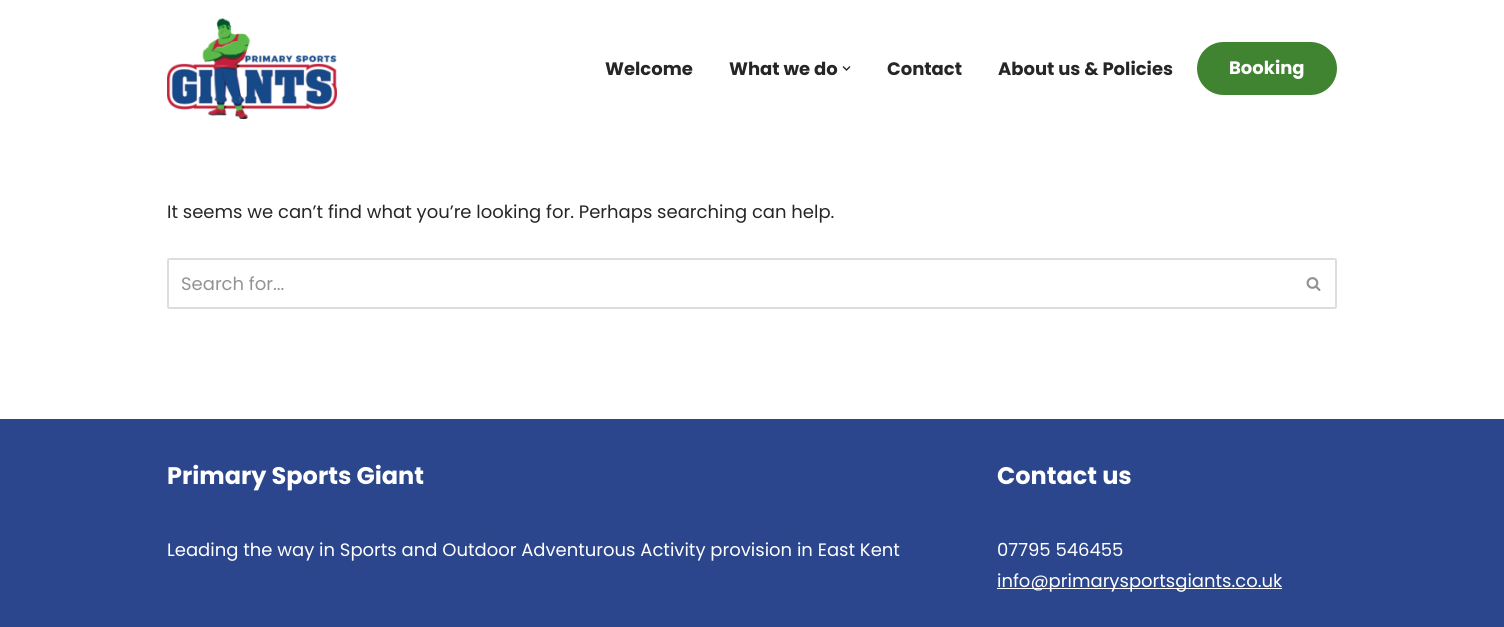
#include <cairo/cairo.h>
#include <math.h>
#include <stddef.h>


static void rounded_rect(cairo_t *cr, double x, double y, double w, double h, double r) {
  cairo_new_sub_path(cr);
  cairo_arc(cr, x + w - r, y + h - r, r, 0, M_PI / 2);
  cairo_arc(cr, x + r, y + h - r, r, M_PI / 2, M_PI);
  cairo_arc(cr, x + r, y + r, r, M_PI, 1.5 * M_PI);
  cairo_arc(cr, x + w - r, y + r, r, 1.5 * M_PI, 2 * M_PI);
  cairo_close_path(cr);
}

static void draw_image(cairo_t *cr, const char *path, double x, double y, double w, double h) {
  cairo_surface_t *image = cairo_image_surface_create_from_png(path);
  cairo_save(cr);
  cairo_set_source_surface(cr, image, x, y);
  cairo_rectangle(cr, x, y, w, h);
  cairo_fill(cr);
  cairo_restore(cr);
  cairo_surface_destroy(image);
}

static void draw(cairo_t *cr) {
  cairo_set_source_rgb(cr, 1, 1, 1);
  cairo_paint(cr);
  draw_image(cr, "images/1.png", 167, 18, 170, 101);
  draw_image(cr, "images/2.png", 842, 66, 9, 5);
  cairo_set_source_rgb(cr, 64 / 255.0, 132 / 255.0, 49 / 255.0);
  rounded_rect(cr, 1197, 42, 140, 53, 26.5);
  cairo_fill(cr);
  cairo_set_source_rgb(cr, 221 / 255.0, 221 / 255.0, 221 / 255.0);
  cairo_set_fill_rule(cr, CAIRO_FILL_RULE_EVEN_ODD);
  cairo_new_path(cr);
  cairo_move_to(cr, 170, 258);
  cairo_line_to(cr, 1292, 258);
  cairo_line_to(cr, 1292, 309);
  cairo_line_to(cr, 170, 309);
  cairo_curve_to(cr, 168, 309, 167, 308, 167, 306);
  cairo_line_to(cr, 167, 261);
  cairo_curve_to(cr, 167, 259, 168, 258, 170, 258);
  cairo_close_path(cr);
  cairo_move_to(cr, 170, 260);
  cairo_line_to(cr, 1292, 260);
  cairo_line_to(cr, 1292, 307);
  cairo_line_to(cr, 170, 307);
  cairo_curve_to(cr, 169, 307, 169, 307, 169, 306);
  cairo_line_to(cr, 169, 261);
  cairo_curve_to(cr, 169, 260, 169, 260, 170, 260);
  cairo_close_path(cr);
  cairo_fill(cr);
  cairo_new_path(cr);
  cairo_move_to(cr, 1292, 258);
  cairo_line_to(cr, 1334, 258);
  cairo_curve_to(cr, 1336, 258, 1337, 259, 1337, 261);
  cairo_line_to(cr, 1337, 306);
  cairo_curve_to(cr, 1337, 308, 1336, 309, 1334, 309);
  cairo_line_to(cr, 1292, 309);
  cairo_close_path(cr);
  cairo_move_to(cr, 1292, 260);
  cairo_line_to(cr, 1334, 260);
  cairo_curve_to(cr, 1335, 260, 1335, 260, 1335, 261);
  cairo_line_to(cr, 1335, 306);
  cairo_curve_to(cr, 1335, 307, 1335, 307, 1334, 307);
  cairo_line_to(cr, 1292, 307);
  cairo_close_path(cr);
  cairo_fill(cr);
  draw_image(cr, "images/3.png", 1306, 277, 15, 14);
  cairo_set_source_rgb(cr, 43 / 255.0, 70 / 255.0, 140 / 255.0);
  cairo_rectangle(cr, 0, 419, 1504, 208);
  cairo_fill(cr);
  cairo_set_source_rgb(cr, 1, 1, 1);
  cairo_rectangle(cr, 997, 588, 285, 1);
  cairo_fill(cr);
  cairo_select_font_face(cr, "Poppins", CAIRO_FONT_SLANT_NORMAL, CAIRO_FONT_WEIGHT_BOLD);
  cairo_set_font_size(cr, 18);
  cairo_set_source_rgb(cr, 39 / 255.0, 38 / 255.0, 38 / 255.0);
  cairo_move_to(cr, 605, 75);
  cairo_show_text(cr, "Welcome");
  cairo_move_to(cr, 729, 75);
  cairo_show_text(cr, "What we do");
  cairo_move_to(cr, 887, 75);
  cairo_show_text(cr, "Contact");
  cairo_move_to(cr, 998, 75);
  cairo_show_text(cr, "About us & Policies");
  cairo_set_source_rgb(cr, 1, 1, 1);
  cairo_move_to(cr, 1229, 74);
  cairo_show_text(cr, "Booking");
  cairo_select_font_face(cr, "Poppins", CAIRO_FONT_SLANT_NORMAL, CAIRO_FONT_WEIGHT_NORMAL);
  cairo_set_source_rgb(cr, 39 / 255.0, 38 / 255.0, 38 / 255.0);
  cairo_move_to(cr, 167, 218);
  cairo_show_text(cr, "It seems we can’t find what you’re looking for. Perhaps searching can help.");
  cairo_set_source_rgb(cr, 147 / 255.0, 147 / 255.0, 147 / 255.0);
  cairo_move_to(cr, 181, 290);
  cairo_show_text(cr, "Search for...");
  cairo_select_font_face(cr, "Poppins", CAIRO_FONT_SLANT_NORMAL, CAIRO_FONT_WEIGHT_BOLD);
  cairo_set_font_size(cr, 24);
  cairo_set_source_rgb(cr, 1, 1, 1);
  cairo_move_to(cr, 167, 484);
  cairo_show_text(cr, "Primary Sports Giant");
  cairo_select_font_face(cr, "Poppins", CAIRO_FONT_SLANT_NORMAL, CAIRO_FONT_WEIGHT_NORMAL);
  cairo_set_font_size(cr, 18);
  cairo_move_to(cr, 167, 556);
  cairo_show_text(cr, "Leading the way in Sports and Outdoor Adventurous Activity provision in East Kent");
  cairo_select_font_face(cr, "Poppins", CAIRO_FONT_SLANT_NORMAL, CAIRO_FONT_WEIGHT_BOLD);
  cairo_set_font_size(cr, 24);
  cairo_move_to(cr, 997, 484);
  cairo_show_text(cr, "Contact us");
  cairo_select_font_face(cr, "Poppins", CAIRO_FONT_SLANT_NORMAL, CAIRO_FONT_WEIGHT_NORMAL);
  cairo_set_font_size(cr, 18);
  cairo_move_to(cr, 997, 556);
  cairo_show_text(cr, "07795 546455");
  cairo_move_to(cr, 997, 587);
  cairo_show_text(cr, "info@primarysportsgiants.co.uk");
}

int main(void) {
  cairo_surface_t *surface = cairo_image_surface_create(CAIRO_FORMAT_RGB24, 1504, 627);
  cairo_t *cr = cairo_create(surface);
  cairo_font_options_t *options = cairo_font_options_create();
  cairo_font_options_set_hint_metrics(options, CAIRO_HINT_METRICS_OFF);
  cairo_font_options_set_hint_style(options, CAIRO_HINT_STYLE_NONE);
  cairo_set_font_options(cr, options);
  cairo_set_miter_limit(cr, 4);
  draw(cr);
  cairo_surface_write_to_png(surface, "out.png");
  cairo_font_options_destroy(options);
  cairo_destroy(cr);
  cairo_surface_destroy(surface);
  return 0;
}
